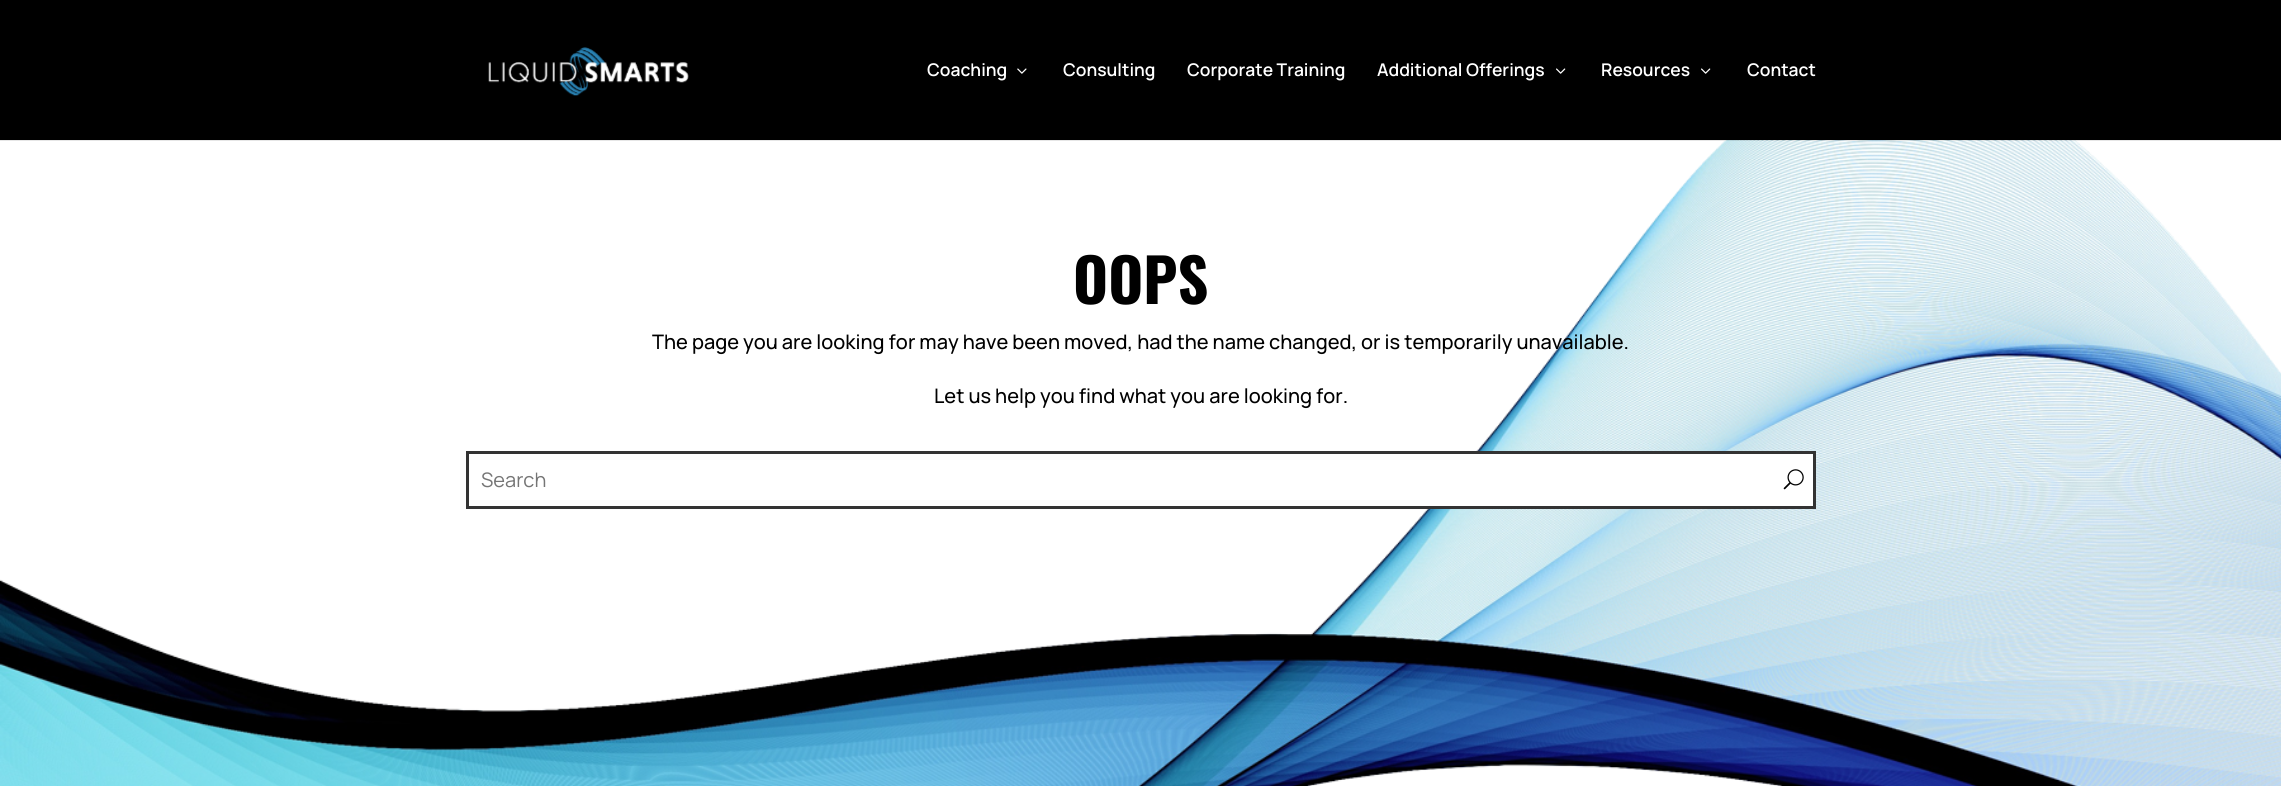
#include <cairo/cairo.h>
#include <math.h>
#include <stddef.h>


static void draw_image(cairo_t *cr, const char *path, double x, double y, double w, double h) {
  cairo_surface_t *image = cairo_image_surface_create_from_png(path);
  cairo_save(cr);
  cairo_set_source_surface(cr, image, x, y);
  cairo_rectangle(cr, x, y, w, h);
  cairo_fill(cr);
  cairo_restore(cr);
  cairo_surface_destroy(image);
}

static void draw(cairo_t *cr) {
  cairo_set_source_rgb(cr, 1, 1, 1);
  cairo_paint(cr);
  draw_image(cr, "images/4.png", 0, 140, 2281, 646);
  cairo_set_source_rgba(cr, 0, 0, 0, 0.1);
  cairo_rectangle(cr, 0, 140, 2281, 1);
  cairo_fill(cr);
  cairo_set_source_rgb(cr, 0, 0, 0);
  cairo_rectangle(cr, 0, 0, 2281, 140);
  cairo_fill(cr);
  draw_image(cr, "images/1.png", 488, 47, 201, 49);
  draw_image(cr, "images/2.png", 1017, 68, 10, 6);
  draw_image(cr, "images/3.png", 1556, 68, 10, 6);
  draw_image(cr, "images/3.png", 1701, 68, 10, 6);
  cairo_set_source_rgb(cr, 1, 1, 1);
  cairo_rectangle(cr, 1430, 454, 383, 52);
  cairo_fill(cr);
  cairo_rectangle(cr, 467.5, 452.5, 1347, 55);
  cairo_set_source_rgb(cr, 51 / 255.0, 51 / 255.0, 51 / 255.0);
  cairo_set_line_width(cr, 3);
  cairo_stroke(cr);
  draw_image(cr, "images/5.png", 1783, 469, 21, 21);
  cairo_select_font_face(cr, "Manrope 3 ExtraLight", CAIRO_FONT_SLANT_NORMAL, CAIRO_FONT_WEIGHT_NORMAL);
  cairo_set_font_size(cr, 17.5);
  cairo_set_source_rgb(cr, 1, 1, 1);
  cairo_move_to(cr, 927, 76);
  cairo_show_text(cr, "Coaching");
  cairo_move_to(cr, 1063, 76);
  cairo_show_text(cr, "Consulting");
  cairo_move_to(cr, 1187, 76);
  cairo_show_text(cr, "Corporate Training");
  cairo_move_to(cr, 1377, 76);
  cairo_show_text(cr, "Additional Offerings");
  cairo_move_to(cr, 1601, 76);
  cairo_show_text(cr, "Resources");
  cairo_move_to(cr, 1747, 76);
  cairo_show_text(cr, "Contact");
  cairo_select_font_face(cr, "Oswald", CAIRO_FONT_SLANT_NORMAL, CAIRO_FONT_WEIGHT_BOLD);
  cairo_set_font_size(cr, 60);
  cairo_set_source_rgb(cr, 0, 0, 0);
  cairo_move_to(cr, 1073, 304);
  cairo_show_text(cr, "OOPS");
  cairo_select_font_face(cr, "Manrope ExtraLight", CAIRO_FONT_SLANT_NORMAL, CAIRO_FONT_WEIGHT_NORMAL);
  cairo_set_font_size(cr, 20);
  cairo_move_to(cr, 652, 349);
  cairo_show_text(cr, "The page you are looking for may have been moved, had the name changed, or is temporarily unavailable.");
  cairo_move_to(cr, 934, 403);
  cairo_show_text(cr, "Let us help you find what you are looking for.");
  cairo_select_font_face(cr, "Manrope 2 ExtraLight", CAIRO_FONT_SLANT_NORMAL, CAIRO_FONT_WEIGHT_NORMAL);
  cairo_set_source_rgb(cr, 117 / 255.0, 117 / 255.0, 117 / 255.0);
  cairo_move_to(cr, 481, 487);
  cairo_show_text(cr, "Search");
}

int main(void) {
  cairo_surface_t *surface = cairo_image_surface_create(CAIRO_FORMAT_RGB24, 2281, 786);
  cairo_t *cr = cairo_create(surface);
  cairo_font_options_t *options = cairo_font_options_create();
  cairo_font_options_set_hint_metrics(options, CAIRO_HINT_METRICS_OFF);
  cairo_font_options_set_hint_style(options, CAIRO_HINT_STYLE_NONE);
  cairo_set_font_options(cr, options);
  cairo_set_miter_limit(cr, 4);
  draw(cr);
  cairo_surface_write_to_png(surface, "out.png");
  cairo_font_options_destroy(options);
  cairo_destroy(cr);
  cairo_surface_destroy(surface);
  return 0;
}
